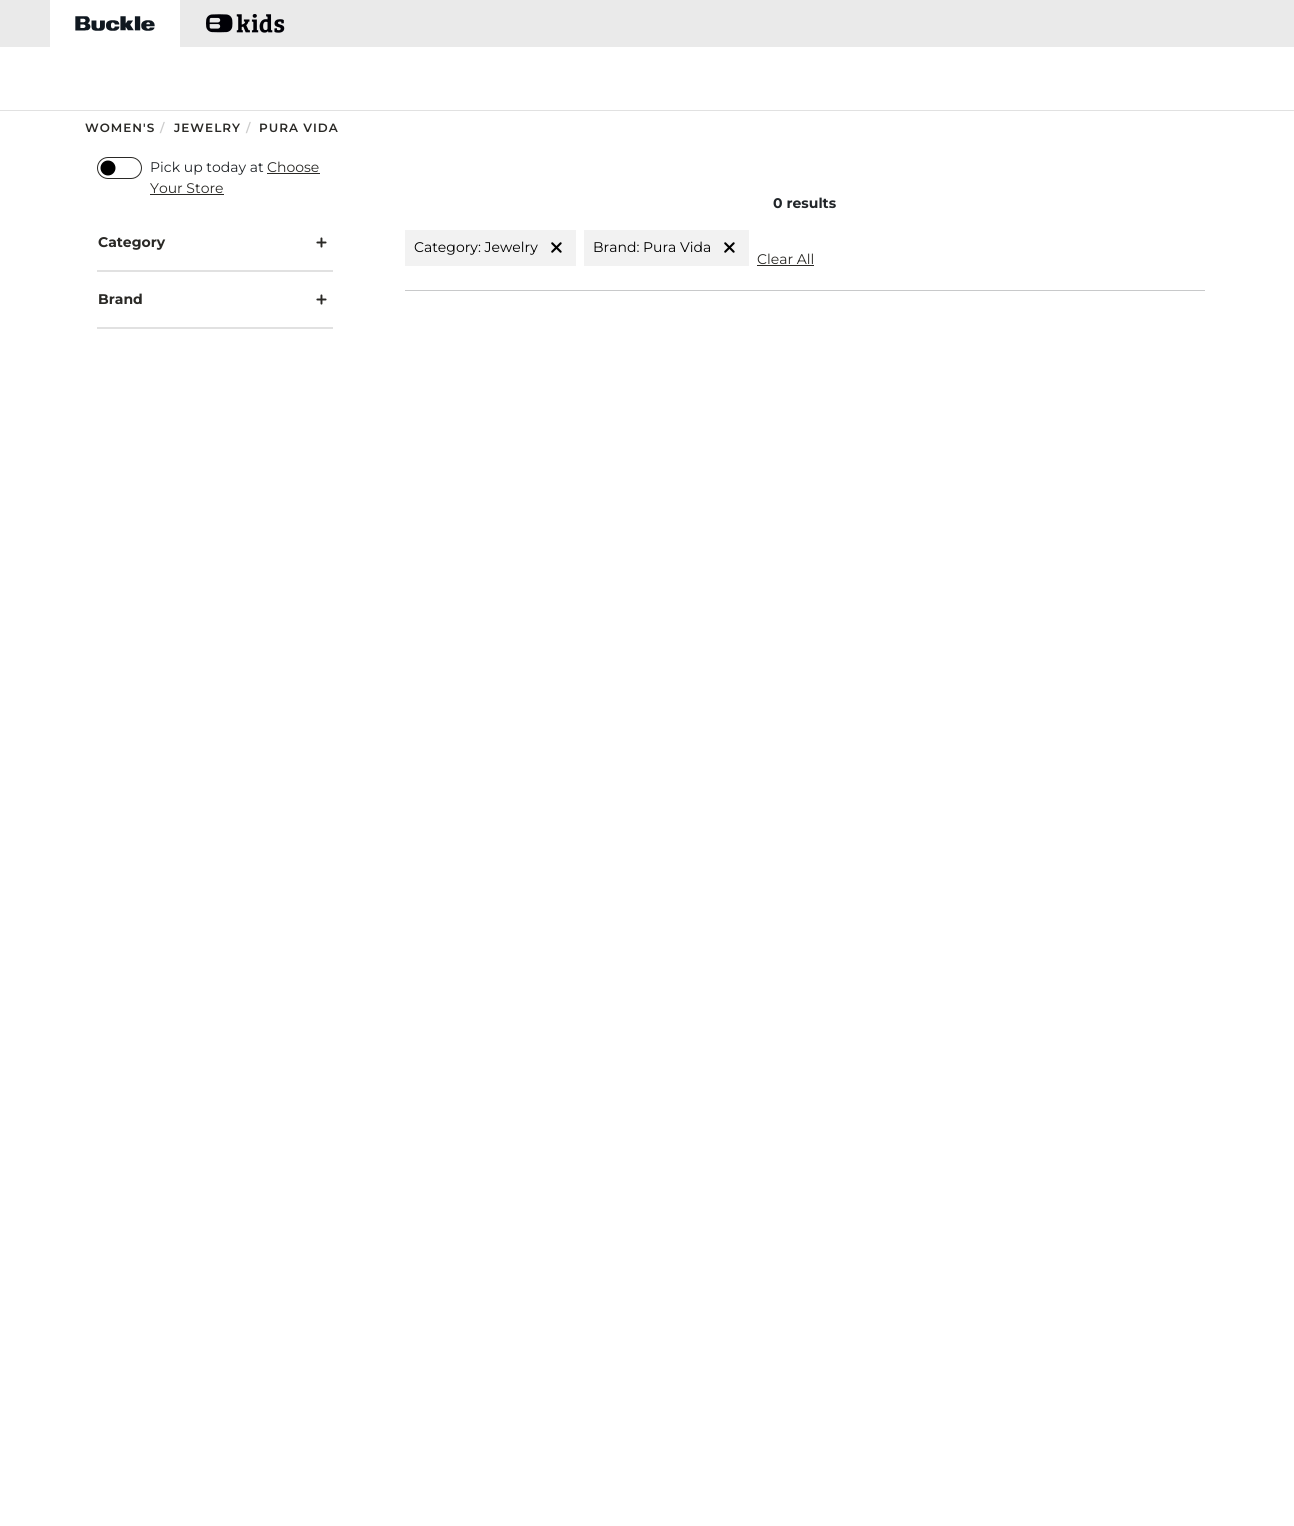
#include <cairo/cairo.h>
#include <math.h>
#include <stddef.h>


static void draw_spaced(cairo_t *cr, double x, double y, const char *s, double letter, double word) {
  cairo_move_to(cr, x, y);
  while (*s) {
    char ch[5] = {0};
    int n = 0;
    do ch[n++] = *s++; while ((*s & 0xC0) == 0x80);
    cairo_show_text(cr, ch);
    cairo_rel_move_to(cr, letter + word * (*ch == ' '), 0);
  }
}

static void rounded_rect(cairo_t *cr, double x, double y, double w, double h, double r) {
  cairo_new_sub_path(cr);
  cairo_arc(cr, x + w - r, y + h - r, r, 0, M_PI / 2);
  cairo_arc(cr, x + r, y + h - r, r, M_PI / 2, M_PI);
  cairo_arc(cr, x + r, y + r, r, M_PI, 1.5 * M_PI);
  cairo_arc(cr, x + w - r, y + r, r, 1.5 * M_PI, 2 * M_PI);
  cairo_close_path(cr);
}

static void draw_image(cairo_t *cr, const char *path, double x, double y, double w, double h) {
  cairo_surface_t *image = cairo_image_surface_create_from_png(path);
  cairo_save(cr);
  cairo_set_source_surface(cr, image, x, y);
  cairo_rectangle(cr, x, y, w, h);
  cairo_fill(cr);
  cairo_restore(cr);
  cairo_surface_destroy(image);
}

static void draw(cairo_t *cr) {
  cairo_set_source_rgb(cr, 1, 1, 1);
  cairo_paint(cr);
  cairo_set_source_rgb(cr, 225 / 255.0, 225 / 255.0, 225 / 255.0);
  cairo_rectangle(cr, 0, 110, 1294, 1);
  cairo_fill(cr);
  cairo_set_source_rgb(cr, 234 / 255.0, 234 / 255.0, 234 / 255.0);
  cairo_rectangle(cr, 0, 0, 1294, 47);
  cairo_fill(cr);
  cairo_set_source_rgb(cr, 1, 1, 1);
  cairo_rectangle(cr, 50, 0, 130, 47);
  cairo_fill(cr);
  draw_image(cr, "images/1.png", 75, 16, 80, 15);
  draw_image(cr, "images/2.png", 206, 14, 79, 19);
  cairo_set_source_rgb(cr, 0, 0, 0);
  cairo_arc(cr, 108, 168, 7.5, 0, 2 * M_PI);
  cairo_fill(cr);
  rounded_rect(cr, 97.5, 157.5, 44, 21, 10.5);
  cairo_set_source_rgb(cr, 42 / 255.0, 41 / 255.0, 38 / 255.0);
  cairo_set_line_width(cr, 1);
  cairo_stroke(cr);
  cairo_rectangle(cr, 267, 173, 53, 1);
  cairo_fill(cr);
  cairo_rectangle(cr, 150, 194, 74, 1);
  cairo_fill(cr);
  draw_image(cr, "images/3.png", 316, 237, 11, 11);
  cairo_set_source_rgb(cr, 225 / 255.0, 225 / 255.0, 225 / 255.0);
  cairo_rectangle(cr, 97, 270, 236, 2);
  cairo_fill(cr);
  cairo_rectangle(cr, 97, 327, 236, 2);
  cairo_fill(cr);
  draw_image(cr, "images/3.png", 316, 294, 11, 11);
  cairo_set_source_rgb(cr, 242 / 255.0, 242 / 255.0, 242 / 255.0);
  cairo_rectangle(cr, 405, 230, 171, 36);
  cairo_fill(cr);
  draw_image(cr, "images/4.png", 551, 242, 11, 11);
  cairo_rectangle(cr, 584, 230, 165, 36);
  cairo_fill(cr);
  draw_image(cr, "images/4.png", 724, 242, 11, 11);
  cairo_set_source_rgb(cr, 42 / 255.0, 41 / 255.0, 38 / 255.0);
  cairo_rectangle(cr, 757, 265, 57, 1);
  cairo_fill(cr);
  cairo_set_source_rgb(cr, 200 / 255.0, 201 / 255.0, 202 / 255.0);
  cairo_rectangle(cr, 405, 290, 800, 1);
  cairo_fill(cr);
  cairo_select_font_face(cr, "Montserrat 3 Thin", CAIRO_FONT_SLANT_NORMAL, CAIRO_FONT_WEIGHT_NORMAL);
  cairo_set_font_size(cr, 12);
  cairo_set_source_rgb(cr, 42 / 255.0, 41 / 255.0, 38 / 255.0);
  draw_spaced(cr, 85, 132, "WOMEN'S", 1, 0);
  cairo_set_source_rgb(cr, 204 / 255.0, 204 / 255.0, 204 / 255.0);
  draw_spaced(cr, 160, 132, "/", 1, 0);
  cairo_set_source_rgb(cr, 42 / 255.0, 41 / 255.0, 38 / 255.0);
  draw_spaced(cr, 174, 132, "JEWELRY", 1, 0);
  cairo_set_source_rgb(cr, 204 / 255.0, 204 / 255.0, 204 / 255.0);
  draw_spaced(cr, 246, 132, "/", 1, 0);
  cairo_set_source_rgb(cr, 42 / 255.0, 41 / 255.0, 38 / 255.0);
  draw_spaced(cr, 259, 132, "PURA VIDA", 1, 0);
  cairo_select_font_face(cr, "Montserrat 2 Thin", CAIRO_FONT_SLANT_NORMAL, CAIRO_FONT_WEIGHT_NORMAL);
  cairo_set_font_size(cr, 14);
  cairo_set_source_rgb(cr, 33 / 255.0, 37 / 255.0, 41 / 255.0);
  cairo_move_to(cr, 150, 172);
  cairo_show_text(cr, "Pick up today at");
  cairo_set_source_rgb(cr, 42 / 255.0, 41 / 255.0, 38 / 255.0);
  cairo_move_to(cr, 267, 172);
  cairo_show_text(cr, "Choose");
  cairo_move_to(cr, 150, 193);
  cairo_show_text(cr, "Your Store");
  cairo_select_font_face(cr, "Montserrat Thin", CAIRO_FONT_SLANT_NORMAL, CAIRO_FONT_WEIGHT_NORMAL);
  cairo_move_to(cr, 98, 247);
  cairo_show_text(cr, "Category");
  cairo_move_to(cr, 98, 304);
  cairo_show_text(cr, "Brand");
  cairo_set_source_rgb(cr, 33 / 255.0, 37 / 255.0, 41 / 255.0);
  cairo_move_to(cr, 773, 208);
  cairo_show_text(cr, "0 results");
  cairo_select_font_face(cr, "Montserrat 2 Thin", CAIRO_FONT_SLANT_NORMAL, CAIRO_FONT_WEIGHT_NORMAL);
  cairo_set_source_rgb(cr, 0, 0, 0);
  cairo_move_to(cr, 414, 252);
  cairo_show_text(cr, "Category: Jewelry");
  cairo_move_to(cr, 593, 252);
  cairo_show_text(cr, "Brand: Pura Vida");
  cairo_set_source_rgb(cr, 42 / 255.0, 41 / 255.0, 38 / 255.0);
  cairo_move_to(cr, 757, 264);
  cairo_show_text(cr, "Clear All");
}

int main(void) {
  cairo_surface_t *surface = cairo_image_surface_create(CAIRO_FORMAT_RGB24, 1294, 1526);
  cairo_t *cr = cairo_create(surface);
  cairo_font_options_t *options = cairo_font_options_create();
  cairo_font_options_set_hint_metrics(options, CAIRO_HINT_METRICS_OFF);
  cairo_font_options_set_hint_style(options, CAIRO_HINT_STYLE_NONE);
  cairo_set_font_options(cr, options);
  cairo_set_miter_limit(cr, 4);
  draw(cr);
  cairo_surface_write_to_png(surface, "out.png");
  cairo_font_options_destroy(options);
  cairo_destroy(cr);
  cairo_surface_destroy(surface);
  return 0;
}
